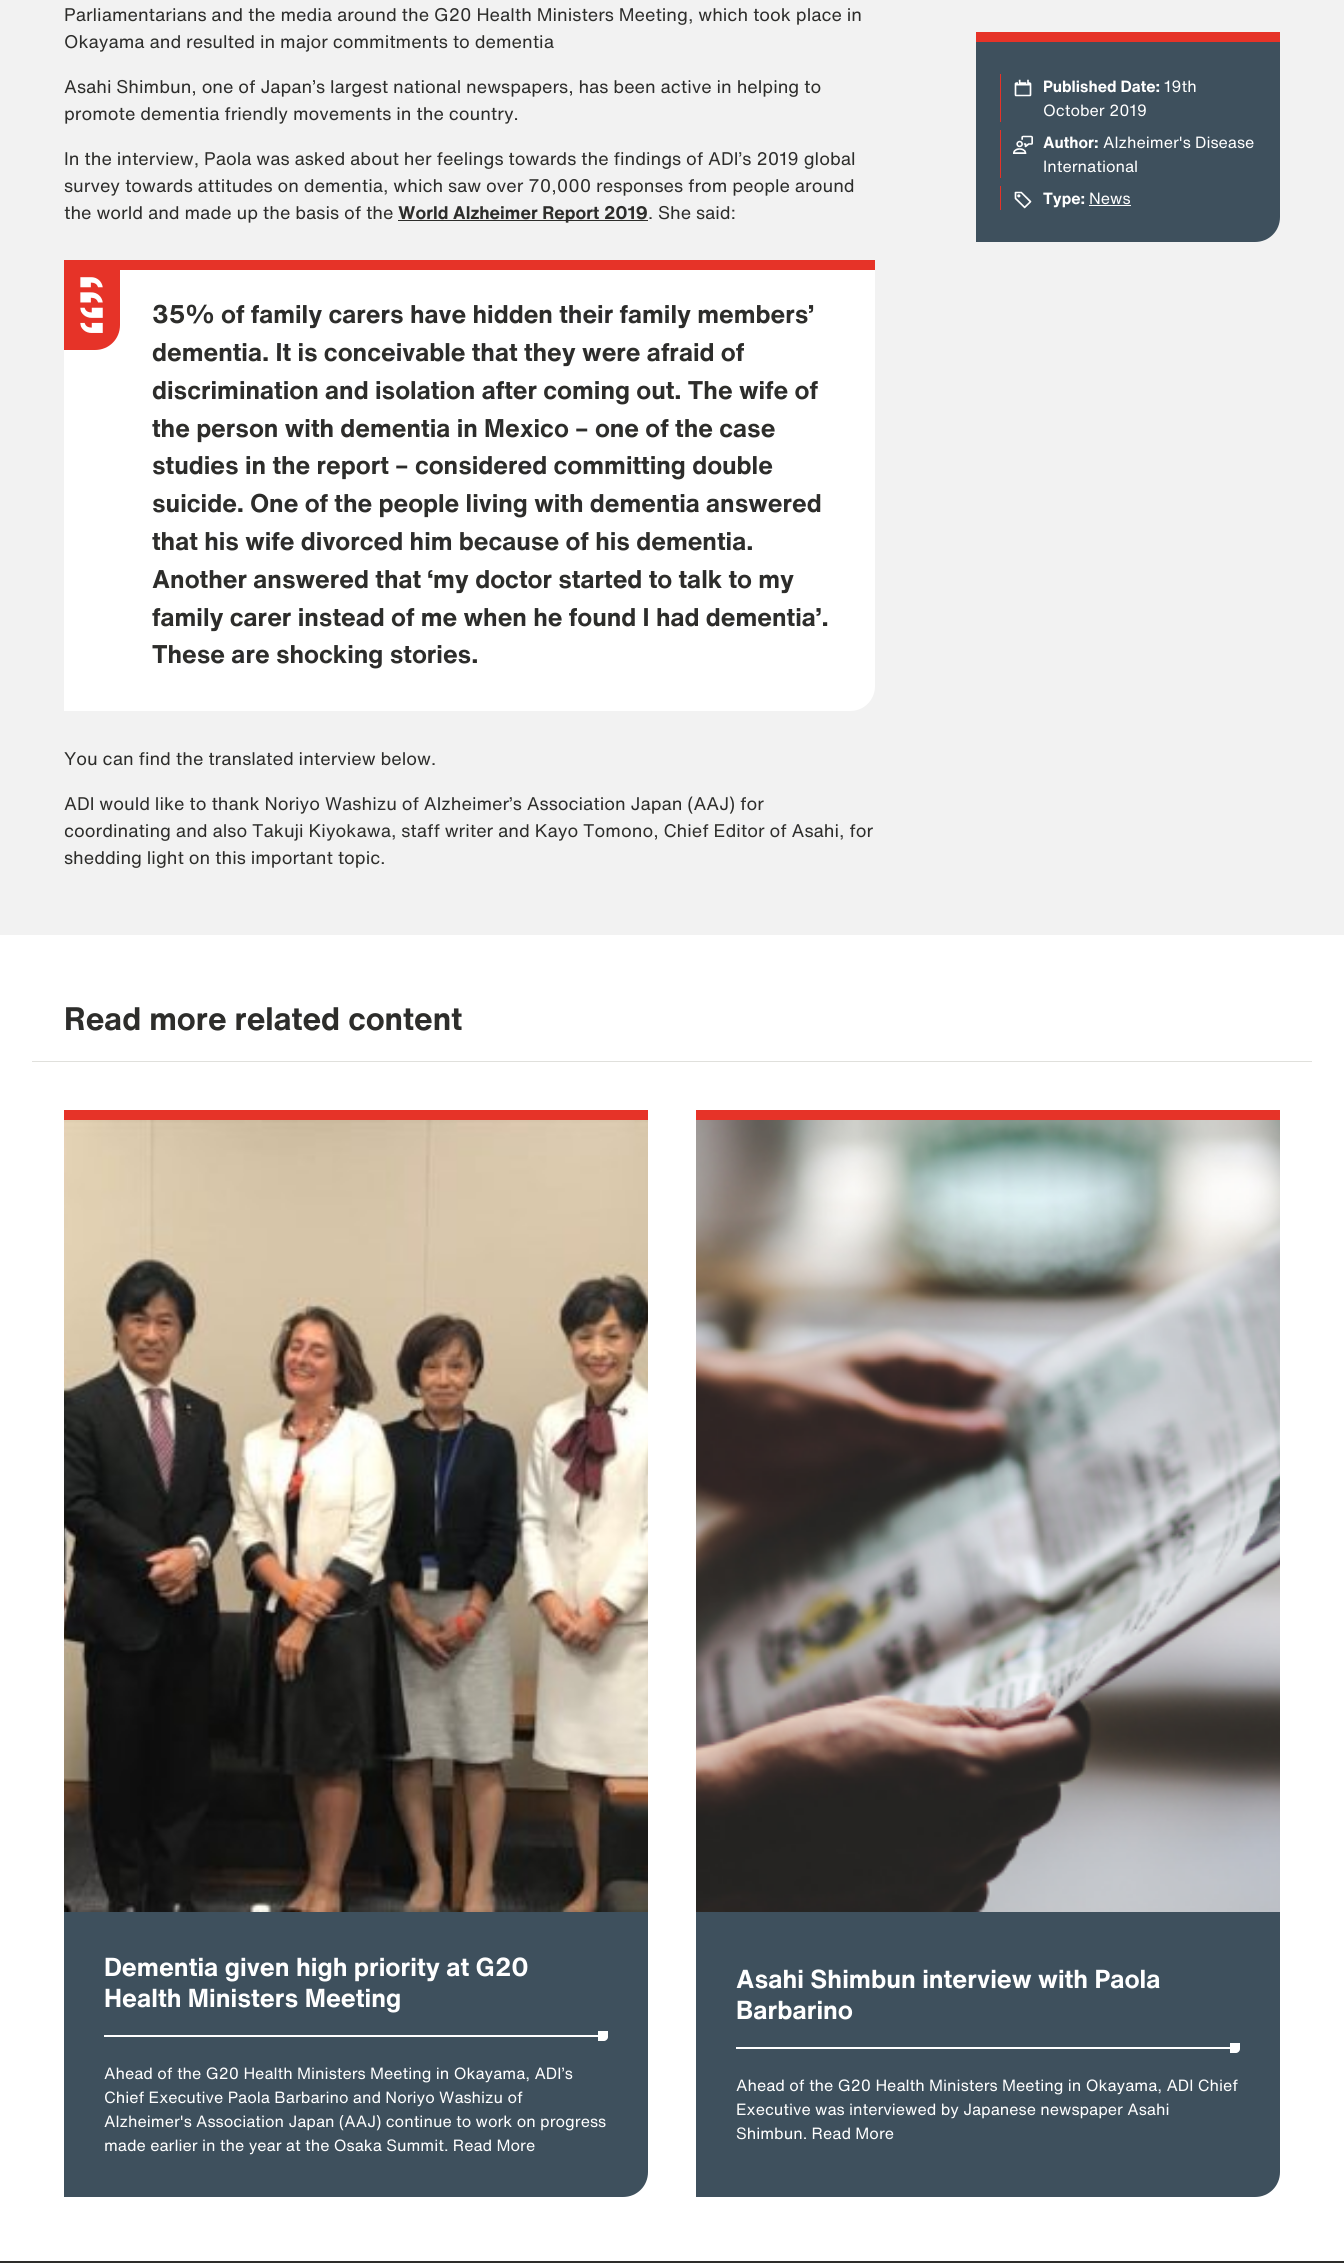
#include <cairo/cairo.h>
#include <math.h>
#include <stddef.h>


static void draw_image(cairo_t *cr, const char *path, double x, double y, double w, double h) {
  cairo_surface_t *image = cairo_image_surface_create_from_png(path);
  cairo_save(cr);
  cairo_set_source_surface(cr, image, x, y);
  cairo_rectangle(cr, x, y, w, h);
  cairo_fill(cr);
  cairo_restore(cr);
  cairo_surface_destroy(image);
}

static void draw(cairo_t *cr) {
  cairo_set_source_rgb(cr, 45 / 255.0, 45 / 255.0, 43 / 255.0);
  cairo_paint(cr);
  cairo_set_source_rgb(cr, 242 / 255.0, 242 / 255.0, 242 / 255.0);
  cairo_rectangle(cr, 0, 0, 1344, 935);
  cairo_fill(cr);
  cairo_set_source_rgb(cr, 45 / 255.0, 45 / 255.0, 43 / 255.0);
  cairo_rectangle(cr, 398, 220, 250, 1);
  cairo_fill(cr);
  cairo_set_source_rgb(cr, 1, 1, 1);
  cairo_new_path(cr);
  cairo_move_to(cr, 64, 260);
  cairo_line_to(cr, 875, 260);
  cairo_line_to(cr, 875, 686);
  cairo_curve_to(cr, 875, 700, 864, 711, 850, 711);
  cairo_line_to(cr, 64, 711);
  cairo_close_path(cr);
  cairo_fill(cr);
  cairo_set_source_rgb(cr, 230 / 255.0, 51 / 255.0, 40 / 255.0);
  cairo_rectangle(cr, 120, 260, 755, 10);
  cairo_fill(cr);
  cairo_new_path(cr);
  cairo_move_to(cr, 120, 260);
  cairo_line_to(cr, 120, 325);
  cairo_curve_to(cr, 120, 339, 109, 350, 95, 350);
  cairo_line_to(cr, 64, 350);
  cairo_line_to(cr, 64, 260);
  cairo_close_path(cr);
  cairo_fill(cr);
  draw_image(cr, "images/1.png", 80, 277, 23, 56);
  cairo_set_source_rgb(cr, 62 / 255.0, 80 / 255.0, 93 / 255.0);
  cairo_new_path(cr);
  cairo_move_to(cr, 976, 32);
  cairo_line_to(cr, 1280, 32);
  cairo_line_to(cr, 1280, 217);
  cairo_curve_to(cr, 1280, 231, 1269, 242, 1255, 242);
  cairo_line_to(cr, 976, 242);
  cairo_close_path(cr);
  cairo_fill(cr);
  cairo_set_source_rgb(cr, 230 / 255.0, 51 / 255.0, 40 / 255.0);
  cairo_rectangle(cr, 976, 32, 304, 10);
  cairo_fill(cr);
  cairo_rectangle(cr, 1000, 74, 1, 48);
  cairo_fill(cr);
  draw_image(cr, "images/2.png", 1014, 79, 18, 18);
  cairo_rectangle(cr, 1000, 130, 1, 48);
  cairo_fill(cr);
  draw_image(cr, "images/3.png", 1013, 135, 20, 19);
  cairo_rectangle(cr, 1000, 186, 1, 24);
  cairo_fill(cr);
  draw_image(cr, "images/4.png", 1014, 191, 18, 18);
  cairo_set_source_rgb(cr, 1, 1, 1);
  cairo_rectangle(cr, 1089, 205, 42, 1);
  cairo_fill(cr);
  cairo_rectangle(cr, 0, 935, 1344, 1326);
  cairo_fill(cr);
  cairo_set_source_rgb(cr, 224 / 255.0, 224 / 255.0, 220 / 255.0);
  cairo_rectangle(cr, 32, 1061, 1280, 1);
  cairo_fill(cr);
  cairo_set_source_rgb(cr, 62 / 255.0, 80 / 255.0, 93 / 255.0);
  cairo_new_path(cr);
  cairo_move_to(cr, 64, 1110);
  cairo_line_to(cr, 648, 1110);
  cairo_line_to(cr, 648, 2172);
  cairo_curve_to(cr, 648, 2186, 637, 2197, 623, 2197);
  cairo_line_to(cr, 64, 2197);
  cairo_close_path(cr);
  cairo_fill(cr);
  cairo_set_source_rgb(cr, 230 / 255.0, 51 / 255.0, 40 / 255.0);
  cairo_rectangle(cr, 64, 1110, 584, 10);
  cairo_fill(cr);
  draw_image(cr, "images/5.png", 64, 1120, 584, 792);
  cairo_set_source_rgb(cr, 1, 1, 1);
  cairo_rectangle(cr, 104, 2035, 494, 2);
  cairo_fill(cr);
  cairo_new_path(cr);
  cairo_move_to(cr, 598, 2031);
  cairo_line_to(cr, 608, 2031);
  cairo_line_to(cr, 608, 2037);
  cairo_curve_to(cr, 608, 2039, 606, 2041, 604, 2041);
  cairo_line_to(cr, 598, 2041);
  cairo_close_path(cr);
  cairo_fill(cr);
  cairo_set_source_rgb(cr, 62 / 255.0, 80 / 255.0, 93 / 255.0);
  cairo_new_path(cr);
  cairo_move_to(cr, 696, 1110);
  cairo_line_to(cr, 1280, 1110);
  cairo_line_to(cr, 1280, 2172);
  cairo_curve_to(cr, 1280, 2186, 1269, 2197, 1255, 2197);
  cairo_line_to(cr, 696, 2197);
  cairo_close_path(cr);
  cairo_fill(cr);
  cairo_set_source_rgb(cr, 230 / 255.0, 51 / 255.0, 40 / 255.0);
  cairo_rectangle(cr, 696, 1110, 584, 10);
  cairo_fill(cr);
  draw_image(cr, "images/6.png", 696, 1120, 584, 792);
  cairo_set_source_rgb(cr, 1, 1, 1);
  cairo_rectangle(cr, 736, 2047, 494, 2);
  cairo_fill(cr);
  cairo_new_path(cr);
  cairo_move_to(cr, 1230, 2043);
  cairo_line_to(cr, 1240, 2043);
  cairo_line_to(cr, 1240, 2049);
  cairo_curve_to(cr, 1240, 2051, 1238, 2053, 1236, 2053);
  cairo_line_to(cr, 1230, 2053);
  cairo_close_path(cr);
  cairo_fill(cr);
  cairo_select_font_face(cr, "Helvetica", CAIRO_FONT_SLANT_NORMAL, CAIRO_FONT_WEIGHT_NORMAL);
  cairo_set_font_size(cr, 18);
  cairo_set_source_rgb(cr, 45 / 255.0, 45 / 255.0, 43 / 255.0);
  cairo_move_to(cr, 64, 21);
  cairo_show_text(cr, "Parliamentarians and the media around the G20 Health Ministers Meeting, which took place in");
  cairo_move_to(cr, 64, 48);
  cairo_show_text(cr, "Okayama and resulted in major commitments to dementia");
  cairo_move_to(cr, 64, 93);
  cairo_show_text(cr, "Asahi Shimbun, one of Japan’s largest national newspapers, has been active in helping to");
  cairo_move_to(cr, 64, 120);
  cairo_show_text(cr, "promote dementia friendly movements in the country.");
  cairo_move_to(cr, 64, 165);
  cairo_show_text(cr, "In the interview, Paola was asked about her feelings towards the findings of ADI’s 2019 global");
  cairo_move_to(cr, 64, 192);
  cairo_show_text(cr, "survey towards attitudes on dementia, which saw over 70,000 responses from people around");
  cairo_move_to(cr, 64, 219);
  cairo_show_text(cr, "the world and made up the basis of the");
  cairo_select_font_face(cr, "Helvetica", CAIRO_FONT_SLANT_NORMAL, CAIRO_FONT_WEIGHT_BOLD);
  cairo_move_to(cr, 398, 219);
  cairo_show_text(cr, "World Alzheimer Report 2019");
  cairo_select_font_face(cr, "Helvetica", CAIRO_FONT_SLANT_NORMAL, CAIRO_FONT_WEIGHT_NORMAL);
  cairo_move_to(cr, 648, 219);
  cairo_show_text(cr, ". She said:");
  cairo_select_font_face(cr, "Helvetica", CAIRO_FONT_SLANT_NORMAL, CAIRO_FONT_WEIGHT_BOLD);
  cairo_set_font_size(cr, 25.2);
  cairo_move_to(cr, 152, 323);
  cairo_show_text(cr, "35% of family carers have hidden their family members’");
  cairo_move_to(cr, 152, 361);
  cairo_show_text(cr, "dementia. It is conceivable that they were afraid of");
  cairo_move_to(cr, 152, 399);
  cairo_show_text(cr, "discrimination and isolation after coming out. The wife of");
  cairo_move_to(cr, 152, 437);
  cairo_show_text(cr, "the person with dementia in Mexico – one of the case");
  cairo_move_to(cr, 152, 474);
  cairo_show_text(cr, "studies in the report – considered committing double");
  cairo_move_to(cr, 152, 512);
  cairo_show_text(cr, "suicide. One of the people living with dementia answered");
  cairo_move_to(cr, 152, 550);
  cairo_show_text(cr, "that his wife divorced him because of his dementia.");
  cairo_move_to(cr, 152, 588);
  cairo_show_text(cr, "Another answered that ‘my doctor started to talk to my");
  cairo_move_to(cr, 152, 626);
  cairo_show_text(cr, "family carer instead of me when he found I had dementia’.");
  cairo_move_to(cr, 152, 663);
  cairo_show_text(cr, "These are shocking stories.");
  cairo_select_font_face(cr, "Helvetica", CAIRO_FONT_SLANT_NORMAL, CAIRO_FONT_WEIGHT_NORMAL);
  cairo_set_font_size(cr, 18);
  cairo_move_to(cr, 64, 765);
  cairo_show_text(cr, "You can find the translated interview below.");
  cairo_move_to(cr, 64, 810);
  cairo_show_text(cr, "ADI would like to thank Noriyo Washizu of Alzheimer’s Association Japan (AAJ) for");
  cairo_move_to(cr, 64, 837);
  cairo_show_text(cr, "coordinating and also Takuji Kiyokawa, staff writer and Kayo Tomono, Chief Editor of Asahi, for");
  cairo_move_to(cr, 64, 864);
  cairo_show_text(cr, "shedding light on this important topic.");
  cairo_select_font_face(cr, "Helvetica", CAIRO_FONT_SLANT_NORMAL, CAIRO_FONT_WEIGHT_BOLD);
  cairo_set_font_size(cr, 16);
  cairo_set_source_rgb(cr, 1, 1, 1);
  cairo_move_to(cr, 1043, 92);
  cairo_show_text(cr, "Published Date:");
  cairo_select_font_face(cr, "Helvetica", CAIRO_FONT_SLANT_NORMAL, CAIRO_FONT_WEIGHT_NORMAL);
  cairo_move_to(cr, 1164, 92);
  cairo_show_text(cr, "19th");
  cairo_move_to(cr, 1043, 116);
  cairo_show_text(cr, "October 2019");
  cairo_select_font_face(cr, "Helvetica", CAIRO_FONT_SLANT_NORMAL, CAIRO_FONT_WEIGHT_BOLD);
  cairo_move_to(cr, 1043, 148);
  cairo_show_text(cr, "Author:");
  cairo_select_font_face(cr, "Helvetica", CAIRO_FONT_SLANT_NORMAL, CAIRO_FONT_WEIGHT_NORMAL);
  cairo_move_to(cr, 1103, 148);
  cairo_show_text(cr, "Alzheimer's Disease");
  cairo_move_to(cr, 1043, 172);
  cairo_show_text(cr, "International");
  cairo_select_font_face(cr, "Helvetica", CAIRO_FONT_SLANT_NORMAL, CAIRO_FONT_WEIGHT_BOLD);
  cairo_move_to(cr, 1043, 204);
  cairo_show_text(cr, "Type:");
  cairo_select_font_face(cr, "Helvetica", CAIRO_FONT_SLANT_NORMAL, CAIRO_FONT_WEIGHT_NORMAL);
  cairo_move_to(cr, 1089, 204);
  cairo_show_text(cr, "News");
  cairo_select_font_face(cr, "Helvetica", CAIRO_FONT_SLANT_NORMAL, CAIRO_FONT_WEIGHT_BOLD);
  cairo_set_font_size(cr, 32);
  cairo_set_source_rgb(cr, 45 / 255.0, 45 / 255.0, 43 / 255.0);
  cairo_move_to(cr, 64, 1030);
  cairo_show_text(cr, "Read more related content");
  cairo_set_font_size(cr, 25.6);
  cairo_set_source_rgb(cr, 1, 1, 1);
  cairo_move_to(cr, 104, 1976);
  cairo_show_text(cr, "Dementia given high priority at G20");
  cairo_move_to(cr, 104, 2007);
  cairo_show_text(cr, "Health Ministers Meeting");
  cairo_select_font_face(cr, "Helvetica", CAIRO_FONT_SLANT_NORMAL, CAIRO_FONT_WEIGHT_NORMAL);
  cairo_set_font_size(cr, 16);
  cairo_move_to(cr, 104, 2079);
  cairo_show_text(cr, "Ahead of the G20 Health Ministers Meeting in Okayama, ADI’s");
  cairo_move_to(cr, 104, 2103);
  cairo_show_text(cr, "Chief Executive Paola Barbarino and Noriyo Washizu of");
  cairo_move_to(cr, 104, 2127);
  cairo_show_text(cr, "Alzheimer's Association Japan (AAJ) continue to work on progress");
  cairo_move_to(cr, 104, 2151);
  cairo_show_text(cr, "made earlier in the year at the Osaka Summit. Read More");
  cairo_select_font_face(cr, "Helvetica", CAIRO_FONT_SLANT_NORMAL, CAIRO_FONT_WEIGHT_BOLD);
  cairo_set_font_size(cr, 25.6);
  cairo_move_to(cr, 736, 1988);
  cairo_show_text(cr, "Asahi Shimbun interview with Paola");
  cairo_move_to(cr, 736, 2019);
  cairo_show_text(cr, "Barbarino");
  cairo_select_font_face(cr, "Helvetica", CAIRO_FONT_SLANT_NORMAL, CAIRO_FONT_WEIGHT_NORMAL);
  cairo_set_font_size(cr, 16);
  cairo_move_to(cr, 736, 2091);
  cairo_show_text(cr, "Ahead of the G20 Health Ministers Meeting in Okayama, ADI Chief");
  cairo_move_to(cr, 736, 2115);
  cairo_show_text(cr, "Executive was interviewed by Japanese newspaper Asahi");
  cairo_move_to(cr, 736, 2139);
  cairo_show_text(cr, "Shimbun. Read More");
}

int main(void) {
  cairo_surface_t *surface = cairo_image_surface_create(CAIRO_FORMAT_RGB24, 1344, 2263);
  cairo_t *cr = cairo_create(surface);
  cairo_font_options_t *options = cairo_font_options_create();
  cairo_font_options_set_hint_metrics(options, CAIRO_HINT_METRICS_OFF);
  cairo_font_options_set_hint_style(options, CAIRO_HINT_STYLE_NONE);
  cairo_set_font_options(cr, options);
  cairo_set_miter_limit(cr, 4);
  draw(cr);
  cairo_surface_write_to_png(surface, "out.png");
  cairo_font_options_destroy(options);
  cairo_destroy(cr);
  cairo_surface_destroy(surface);
  return 0;
}
